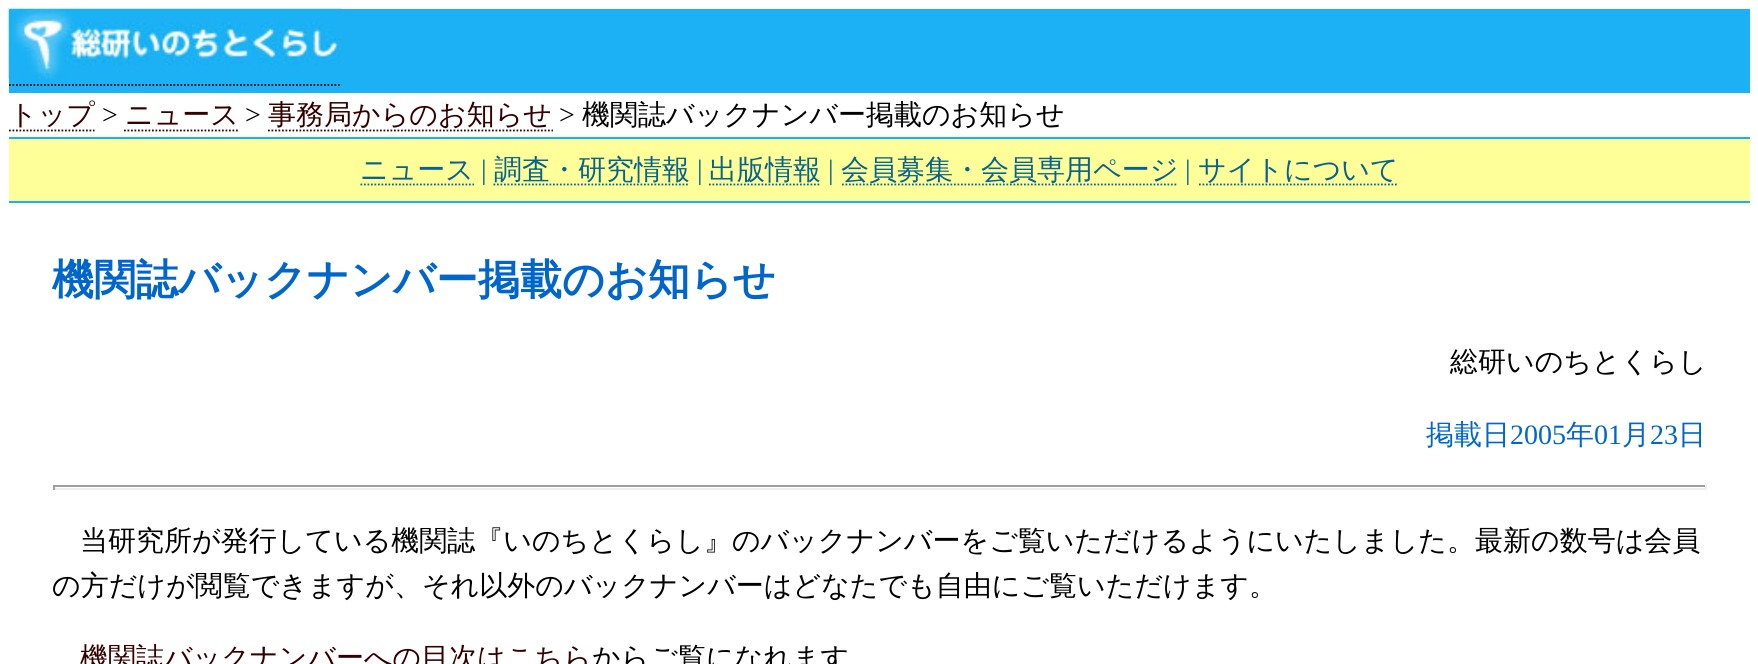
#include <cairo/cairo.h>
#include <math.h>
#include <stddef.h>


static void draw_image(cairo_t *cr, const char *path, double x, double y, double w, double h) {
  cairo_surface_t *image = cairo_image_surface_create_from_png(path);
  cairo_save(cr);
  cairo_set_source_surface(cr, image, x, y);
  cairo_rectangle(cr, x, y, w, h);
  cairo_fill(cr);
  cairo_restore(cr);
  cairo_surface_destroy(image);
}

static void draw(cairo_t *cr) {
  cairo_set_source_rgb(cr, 1, 1, 1);
  cairo_paint(cr);
  cairo_set_source_rgb(cr, 28 / 255.0, 177 / 255.0, 245 / 255.0);
  cairo_rectangle(cr, 9, 9, 1741, 84);
  cairo_fill(cr);
  draw_image(cr, "images/1.png", 8, 8, 334, 71);
  cairo_new_path(cr);
  cairo_move_to(cr, 9, 85);
  cairo_line_to(cr, 341, 85);
  cairo_set_source_rgb(cr, 51 / 255.0, 0, 0);
  cairo_set_line_width(cr, 1.8);
  cairo_set_dash(cr, (double[]){1.75, 1.75}, 2, 0);
  cairo_stroke(cr);
  cairo_new_path(cr);
  cairo_move_to(cr, 9, 130.5);
  cairo_line_to(cr, 94.5, 130.5);
  cairo_stroke(cr);
  cairo_new_path(cr);
  cairo_move_to(cr, 124, 130.5);
  cairo_line_to(cr, 238, 130.5);
  cairo_stroke(cr);
  cairo_new_path(cr);
  cairo_move_to(cr, 268, 130.5);
  cairo_line_to(cr, 553, 130.5);
  cairo_stroke(cr);
  cairo_set_source_rgb(cr, 1, 1, 153 / 255.0);
  cairo_rectangle(cr, 9, 139, 1741, 62);
  cairo_fill(cr);
  cairo_set_source_rgb(cr, 28 / 255.0, 177 / 255.0, 245 / 255.0);
  cairo_rectangle(cr, 9, 137, 1741, 2);
  cairo_fill(cr);
  cairo_rectangle(cr, 9, 201, 1741, 2);
  cairo_fill(cr);
  cairo_new_path(cr);
  cairo_move_to(cr, 360.5, 184.5);
  cairo_line_to(cr, 474, 184.5);
  cairo_set_source_rgb(cr, 5 / 255.0, 99 / 255.0, 142 / 255.0);
  cairo_stroke(cr);
  cairo_new_path(cr);
  cairo_move_to(cr, 493.5, 184.5);
  cairo_line_to(cr, 689.5, 184.5);
  cairo_stroke(cr);
  cairo_new_path(cr);
  cairo_move_to(cr, 709, 184.5);
  cairo_line_to(cr, 821, 184.5);
  cairo_stroke(cr);
  cairo_new_path(cr);
  cairo_move_to(cr, 842, 184.5);
  cairo_line_to(cr, 1178, 184.5);
  cairo_stroke(cr);
  cairo_new_path(cr);
  cairo_move_to(cr, 1199, 184.5);
  cairo_line_to(cr, 1398, 184.5);
  cairo_stroke(cr);
  cairo_set_source_rgb(cr, 159 / 255.0, 159 / 255.0, 159 / 255.0);
  cairo_rectangle(cr, 53, 485, 1653, 2);
  cairo_fill(cr);
  cairo_set_source_rgb(cr, 238 / 255.0, 238 / 255.0, 238 / 255.0);
  cairo_rectangle(cr, 1705, 485, 2, 5);
  cairo_fill(cr);
  cairo_rectangle(cr, 53, 488, 1653, 2);
  cairo_fill(cr);
  cairo_set_source_rgb(cr, 159 / 255.0, 159 / 255.0, 159 / 255.0);
  cairo_rectangle(cr, 53, 485, 2, 5);
  cairo_fill(cr);
  cairo_select_font_face(cr, "WenQuanYi Zen Hei Medium", CAIRO_FONT_SLANT_NORMAL, CAIRO_FONT_WEIGHT_NORMAL);
  cairo_set_font_size(cr, 28);
  cairo_set_source_rgb(cr, 51 / 255.0, 0, 0);
  cairo_move_to(cr, 9, 124);
  cairo_show_text(cr, "トップ");
  cairo_select_font_face(cr, "Liberation Serif", CAIRO_FONT_SLANT_NORMAL, CAIRO_FONT_WEIGHT_NORMAL);
  cairo_set_source_rgb(cr, 0, 0, 0);
  cairo_move_to(cr, 102, 124);
  cairo_show_text(cr, ">");
  cairo_select_font_face(cr, "WenQuanYi Zen Hei Medium", CAIRO_FONT_SLANT_NORMAL, CAIRO_FONT_WEIGHT_NORMAL);
  cairo_set_source_rgb(cr, 51 / 255.0, 0, 0);
  cairo_move_to(cr, 125, 124);
  cairo_show_text(cr, "ニュース");
  cairo_select_font_face(cr, "Liberation Serif", CAIRO_FONT_SLANT_NORMAL, CAIRO_FONT_WEIGHT_NORMAL);
  cairo_set_source_rgb(cr, 0, 0, 0);
  cairo_move_to(cr, 245, 124);
  cairo_show_text(cr, ">");
  cairo_select_font_face(cr, "WenQuanYi Zen Hei Medium", CAIRO_FONT_SLANT_NORMAL, CAIRO_FONT_WEIGHT_NORMAL);
  cairo_set_source_rgb(cr, 51 / 255.0, 0, 0);
  cairo_move_to(cr, 268, 124);
  cairo_show_text(cr, "事務局からのお知らせ");
  cairo_select_font_face(cr, "Liberation Serif", CAIRO_FONT_SLANT_NORMAL, CAIRO_FONT_WEIGHT_NORMAL);
  cairo_set_source_rgb(cr, 0, 0, 0);
  cairo_move_to(cr, 559, 124);
  cairo_show_text(cr, ">");
  cairo_select_font_face(cr, "WenQuanYi Zen Hei Medium", CAIRO_FONT_SLANT_NORMAL, CAIRO_FONT_WEIGHT_NORMAL);
  cairo_move_to(cr, 582, 124);
  cairo_show_text(cr, "機関誌バックナンバー掲載のお知らせ");
  cairo_set_source_rgb(cr, 5 / 255.0, 99 / 255.0, 142 / 255.0);
  cairo_move_to(cr, 360, 179);
  cairo_show_text(cr, "ニュース");
  cairo_select_font_face(cr, "Liberation Serif", CAIRO_FONT_SLANT_NORMAL, CAIRO_FONT_WEIGHT_NORMAL);
  cairo_move_to(cr, 481, 179);
  cairo_show_text(cr, "|");
  cairo_select_font_face(cr, "WenQuanYi Zen Hei Medium", CAIRO_FONT_SLANT_NORMAL, CAIRO_FONT_WEIGHT_NORMAL);
  cairo_move_to(cr, 494, 179);
  cairo_show_text(cr, "調査・研究情報");
  cairo_select_font_face(cr, "Liberation Serif", CAIRO_FONT_SLANT_NORMAL, CAIRO_FONT_WEIGHT_NORMAL);
  cairo_move_to(cr, 697, 179);
  cairo_show_text(cr, "|");
  cairo_select_font_face(cr, "WenQuanYi Zen Hei Medium", CAIRO_FONT_SLANT_NORMAL, CAIRO_FONT_WEIGHT_NORMAL);
  cairo_move_to(cr, 709, 179);
  cairo_show_text(cr, "出版情報");
  cairo_select_font_face(cr, "Liberation Serif", CAIRO_FONT_SLANT_NORMAL, CAIRO_FONT_WEIGHT_NORMAL);
  cairo_move_to(cr, 828, 179);
  cairo_show_text(cr, "|");
  cairo_select_font_face(cr, "WenQuanYi Zen Hei Medium", CAIRO_FONT_SLANT_NORMAL, CAIRO_FONT_WEIGHT_NORMAL);
  cairo_move_to(cr, 841, 179);
  cairo_show_text(cr, "会員募集・会員専用ページ");
  cairo_select_font_face(cr, "Liberation Serif", CAIRO_FONT_SLANT_NORMAL, CAIRO_FONT_WEIGHT_NORMAL);
  cairo_move_to(cr, 1185, 179);
  cairo_show_text(cr, "|");
  cairo_select_font_face(cr, "WenQuanYi Zen Hei Medium", CAIRO_FONT_SLANT_NORMAL, CAIRO_FONT_WEIGHT_NORMAL);
  cairo_move_to(cr, 1198, 179);
  cairo_show_text(cr, "サイトについて");
  cairo_select_font_face(cr, "WenQuanYi Zen Hei", CAIRO_FONT_SLANT_NORMAL, CAIRO_FONT_WEIGHT_BOLD);
  cairo_set_font_size(cr, 42);
  cairo_set_source_rgb(cr, 0, 102 / 255.0, 204 / 255.0);
  cairo_move_to(cr, 52, 294);
  cairo_show_text(cr, "機関誌バックナンバー掲載のお知らせ");
  cairo_select_font_face(cr, "WenQuanYi Zen Hei Medium", CAIRO_FONT_SLANT_NORMAL, CAIRO_FONT_WEIGHT_NORMAL);
  cairo_set_font_size(cr, 28);
  cairo_set_source_rgb(cr, 0, 0, 0);
  cairo_move_to(cr, 1450, 371);
  cairo_show_text(cr, "総研いのちとくらし");
  cairo_set_source_rgb(cr, 0, 102 / 255.0, 204 / 255.0);
  cairo_move_to(cr, 1426, 444);
  cairo_show_text(cr, "掲載日");
  cairo_select_font_face(cr, "Liberation Serif", CAIRO_FONT_SLANT_NORMAL, CAIRO_FONT_WEIGHT_NORMAL);
  cairo_move_to(cr, 1510, 444);
  cairo_show_text(cr, "2005");
  cairo_select_font_face(cr, "WenQuanYi Zen Hei Medium", CAIRO_FONT_SLANT_NORMAL, CAIRO_FONT_WEIGHT_NORMAL);
  cairo_move_to(cr, 1566, 444);
  cairo_show_text(cr, "年");
  cairo_select_font_face(cr, "Liberation Serif", CAIRO_FONT_SLANT_NORMAL, CAIRO_FONT_WEIGHT_NORMAL);
  cairo_move_to(cr, 1594, 444);
  cairo_show_text(cr, "01");
  cairo_select_font_face(cr, "WenQuanYi Zen Hei Medium", CAIRO_FONT_SLANT_NORMAL, CAIRO_FONT_WEIGHT_NORMAL);
  cairo_move_to(cr, 1622, 444);
  cairo_show_text(cr, "月");
  cairo_select_font_face(cr, "Liberation Serif", CAIRO_FONT_SLANT_NORMAL, CAIRO_FONT_WEIGHT_NORMAL);
  cairo_move_to(cr, 1650, 444);
  cairo_show_text(cr, "23");
  cairo_select_font_face(cr, "WenQuanYi Zen Hei Medium", CAIRO_FONT_SLANT_NORMAL, CAIRO_FONT_WEIGHT_NORMAL);
  cairo_move_to(cr, 1678, 444);
  cairo_show_text(cr, "日");
  cairo_set_source_rgb(cr, 0, 0, 0);
  cairo_move_to(cr, 80, 550);
  cairo_show_text(cr, "当研究所が発行している機関誌『いのちとくらし』のバックナンバーをご覧いただけるようにいたしました。最新の数号は会員");
  cairo_move_to(cr, 52, 595);
  cairo_show_text(cr, "の方だけが閲覧できますが、それ以外のバックナンバーはどなたでも自由にご覧いただけます。");
  cairo_set_source_rgb(cr, 51 / 255.0, 0, 0);
  cairo_move_to(cr, 80, 667);
  cairo_show_text(cr, "機関誌バックナンバーへの目次はこちら");
  cairo_set_source_rgb(cr, 0, 0, 0);
  cairo_move_to(cr, 592, 667);
  cairo_show_text(cr, "からご覧になれます");
}

int main(void) {
  cairo_surface_t *surface = cairo_image_surface_create(CAIRO_FORMAT_RGB24, 1758, 664);
  cairo_t *cr = cairo_create(surface);
  cairo_font_options_t *options = cairo_font_options_create();
  cairo_font_options_set_hint_metrics(options, CAIRO_HINT_METRICS_OFF);
  cairo_font_options_set_hint_style(options, CAIRO_HINT_STYLE_NONE);
  cairo_set_font_options(cr, options);
  cairo_set_miter_limit(cr, 4);
  draw(cr);
  cairo_surface_write_to_png(surface, "out.png");
  cairo_font_options_destroy(options);
  cairo_destroy(cr);
  cairo_surface_destroy(surface);
  return 0;
}
